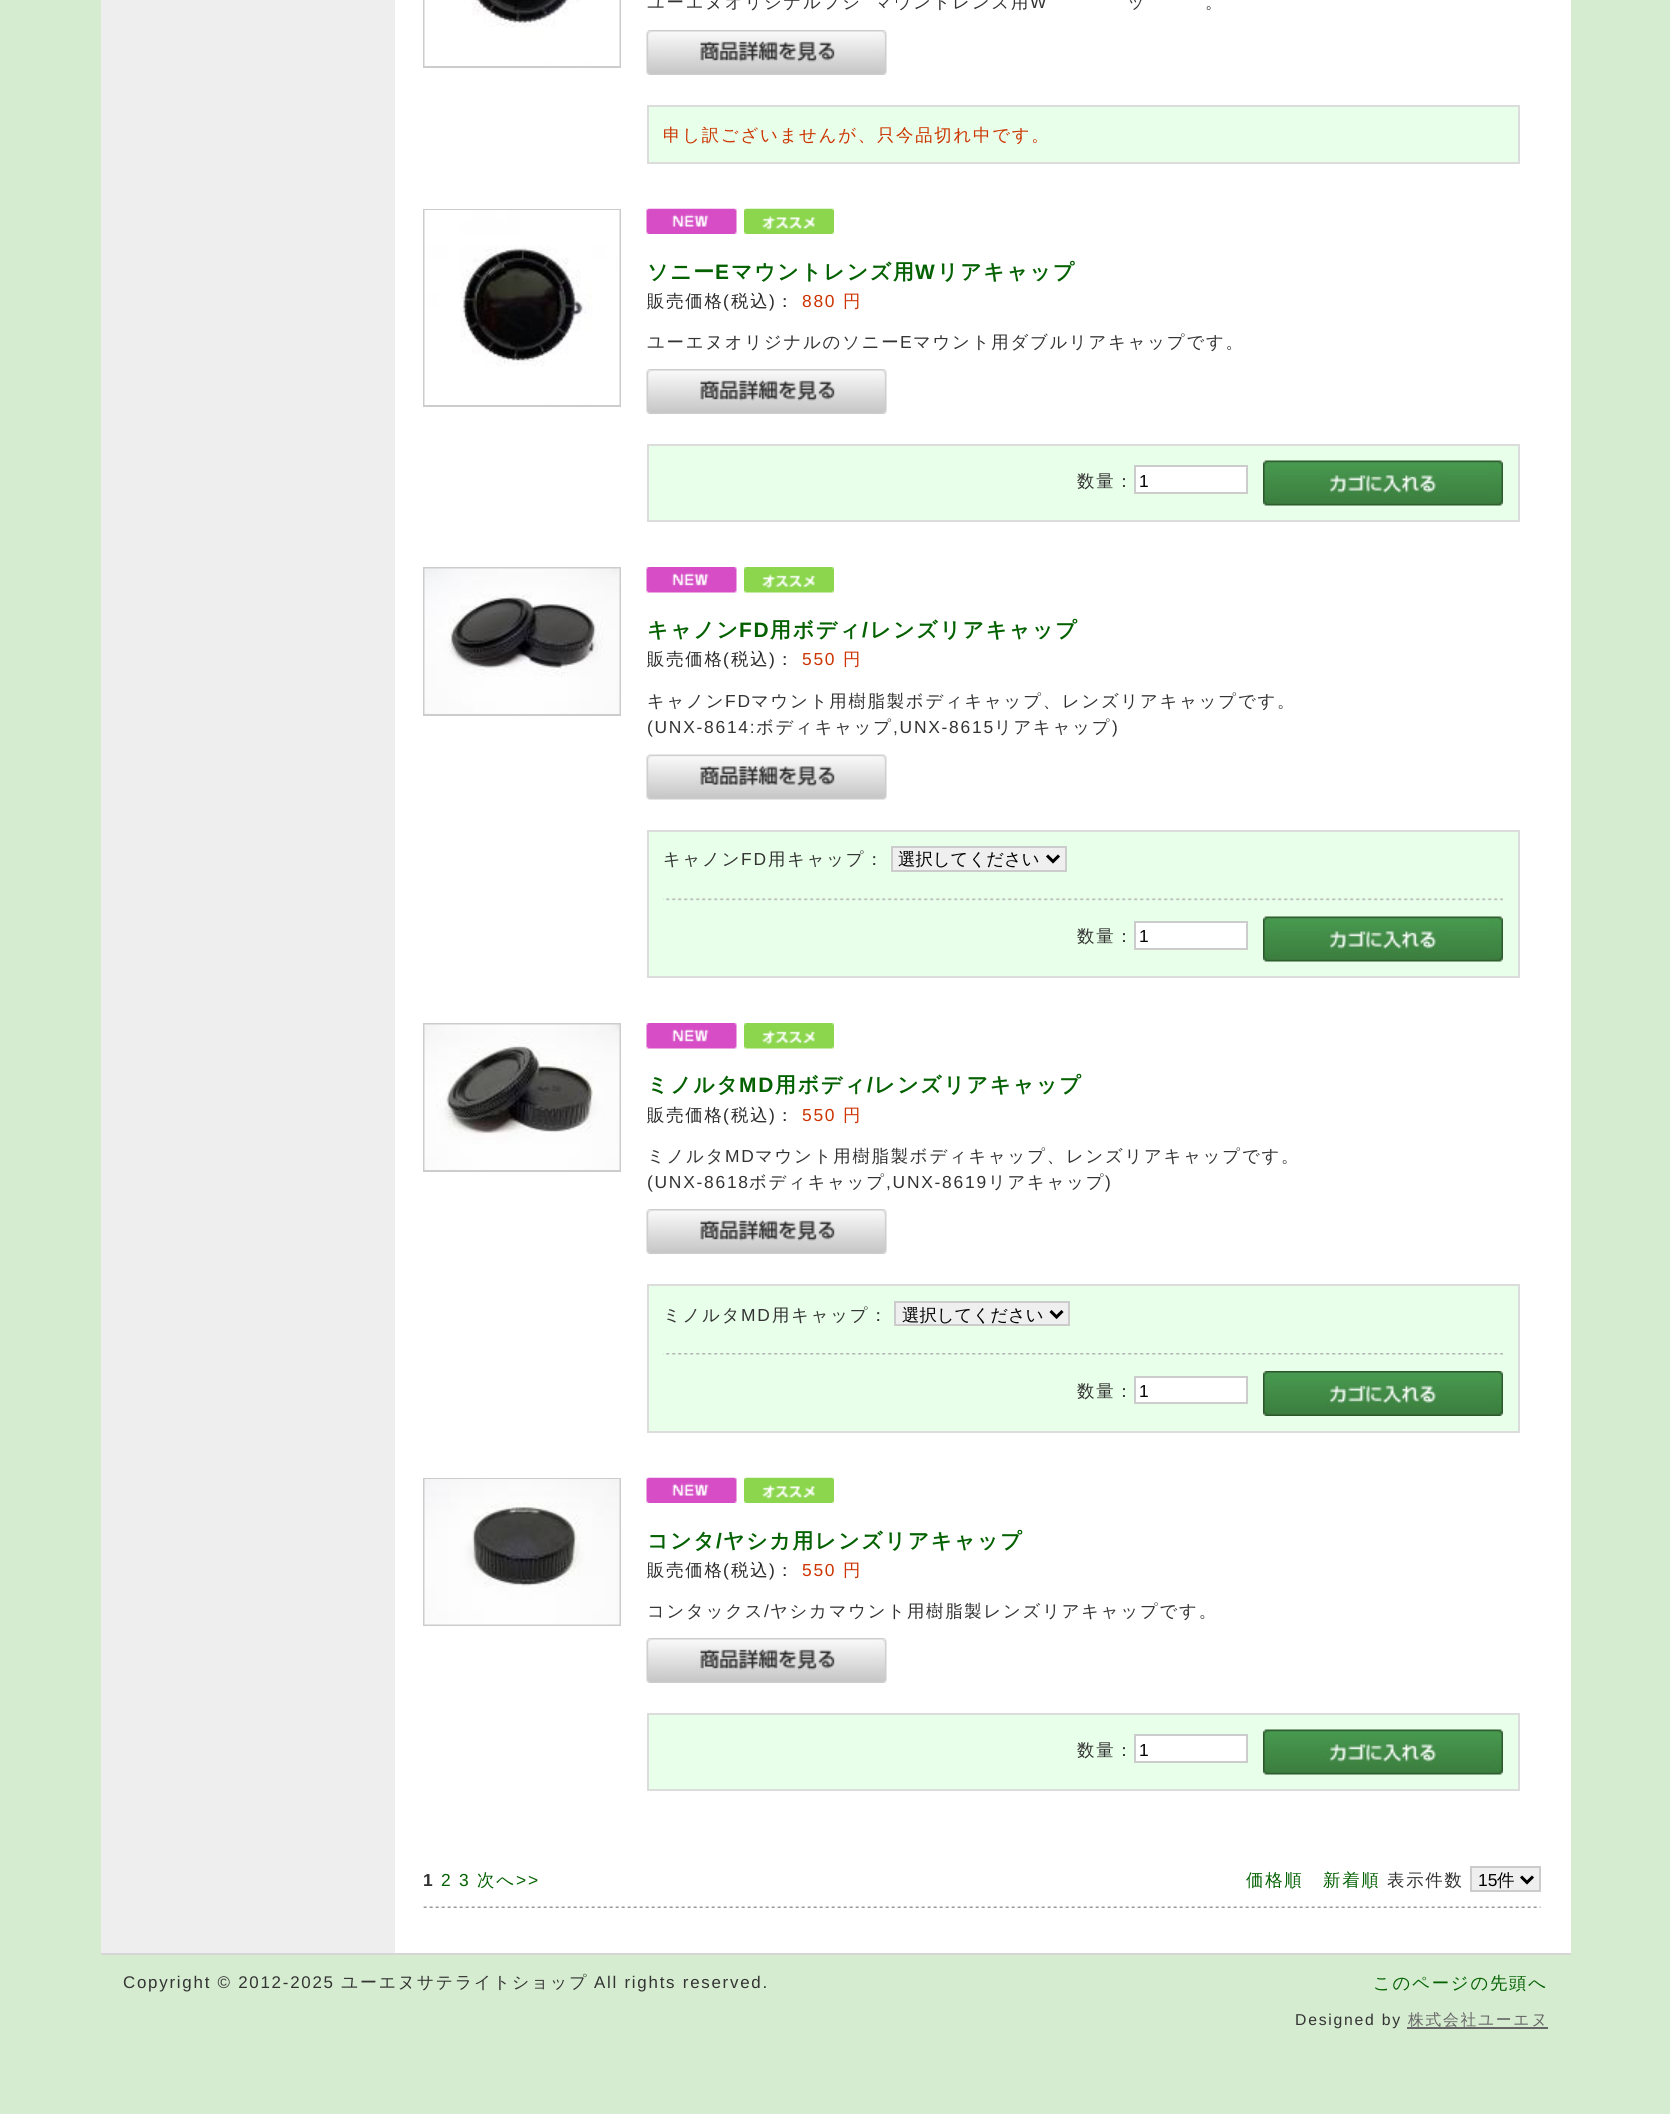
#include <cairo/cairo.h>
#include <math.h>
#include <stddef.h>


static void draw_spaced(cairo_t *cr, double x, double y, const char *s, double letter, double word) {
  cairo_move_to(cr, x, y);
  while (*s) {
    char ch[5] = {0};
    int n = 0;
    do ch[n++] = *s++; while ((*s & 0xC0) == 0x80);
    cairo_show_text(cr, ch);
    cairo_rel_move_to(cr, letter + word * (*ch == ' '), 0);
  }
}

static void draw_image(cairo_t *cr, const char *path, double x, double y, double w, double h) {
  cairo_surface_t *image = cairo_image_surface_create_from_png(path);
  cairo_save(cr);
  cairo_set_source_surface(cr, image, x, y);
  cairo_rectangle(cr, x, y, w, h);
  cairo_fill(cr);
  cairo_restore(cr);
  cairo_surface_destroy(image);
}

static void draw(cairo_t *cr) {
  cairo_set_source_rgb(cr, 213 / 255.0, 236 / 255.0, 208 / 255.0);
  cairo_paint(cr);
  cairo_set_source_rgb(cr, 1, 1, 1);
  cairo_rectangle(cr, 395, 0, 1176, 1953);
  cairo_fill(cr);
  cairo_set_source_rgb(cr, 214 / 255.0, 214 / 255.0, 214 / 255.0);
  cairo_rectangle(cr, 101, 1953, 1470, 2);
  cairo_fill(cr);
  cairo_set_source_rgb(cr, 238 / 255.0, 238 / 255.0, 238 / 255.0);
  cairo_rectangle(cr, 101, 0, 294, 1953);
  cairo_fill(cr);
  cairo_rectangle(cr, 424, -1, 196, 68);
  cairo_set_source_rgb(cr, 204 / 255.0, 204 / 255.0, 204 / 255.0);
  cairo_stroke(cr);
  draw_image(cr, "images/1.png", 424, 0, 196, 66);
  draw_image(cr, "images/2.png", 646, 30, 241, 45);
  cairo_set_source_rgb(cr, 232 / 255.0, 1, 233 / 255.0);
  cairo_rectangle(cr, 648, 106, 871, 57);
  cairo_fill_preserve(cr);
  cairo_set_source_rgb(cr, 220 / 255.0, 220 / 255.0, 220 / 255.0);
  cairo_stroke(cr);
  cairo_rectangle(cr, 424, 210, 196, 196);
  cairo_set_source_rgb(cr, 204 / 255.0, 204 / 255.0, 204 / 255.0);
  cairo_stroke(cr);
  draw_image(cr, "images/3.png", 424, 210, 196, 195);
  draw_image(cr, "images/4.png", 646, 208, 91, 26);
  draw_image(cr, "images/5.png", 744, 208, 90, 26);
  draw_image(cr, "images/2.png", 646, 369, 241, 45);
  cairo_set_source_rgb(cr, 232 / 255.0, 1, 233 / 255.0);
  cairo_rectangle(cr, 648, 445, 871, 76);
  cairo_fill_preserve(cr);
  cairo_set_source_rgb(cr, 220 / 255.0, 220 / 255.0, 220 / 255.0);
  cairo_stroke(cr);
  cairo_set_source_rgb(cr, 1, 1, 1);
  cairo_rectangle(cr, 1135, 466, 112, 27);
  cairo_fill_preserve(cr);
  cairo_set_source_rgb(cr, 204 / 255.0, 204 / 255.0, 204 / 255.0);
  cairo_stroke(cr);
  draw_image(cr, "images/6.png", 1263, 460, 240, 46);
  cairo_rectangle(cr, 424, 568, 196, 147);
  cairo_stroke(cr);
  draw_image(cr, "images/7.png", 424, 568, 196, 146);
  draw_image(cr, "images/8.png", 646, 567, 91, 26);
  draw_image(cr, "images/9.png", 744, 567, 90, 26);
  draw_image(cr, "images/10.png", 646, 754, 241, 46);
  cairo_set_source_rgb(cr, 232 / 255.0, 1, 233 / 255.0);
  cairo_rectangle(cr, 648, 831, 871, 146);
  cairo_fill_preserve(cr);
  cairo_set_source_rgb(cr, 220 / 255.0, 220 / 255.0, 220 / 255.0);
  cairo_stroke(cr);
  draw_image(cr, "images/11.png", 663, 898, 840, 3);
  cairo_set_source_rgb(cr, 239 / 255.0, 239 / 255.0, 239 / 255.0);
  cairo_rectangle(cr, 892, 847, 174, 24);
  cairo_fill_preserve(cr);
  cairo_set_source_rgb(cr, 204 / 255.0, 204 / 255.0, 204 / 255.0);
  cairo_stroke(cr);
  cairo_new_path(cr);
  cairo_move_to(cr, 1047, 855.5);
  cairo_line_to(cr, 1053, 861.5);
  cairo_line_to(cr, 1059, 855.5);
  cairo_set_source_rgb(cr, 0, 0, 0);
  cairo_set_line_width(cr, 3);
  cairo_stroke(cr);
  cairo_set_source_rgb(cr, 1, 1, 1);
  cairo_rectangle(cr, 1135, 922, 112, 27);
  cairo_fill_preserve(cr);
  cairo_set_source_rgb(cr, 204 / 255.0, 204 / 255.0, 204 / 255.0);
  cairo_set_line_width(cr, 2);
  cairo_stroke(cr);
  draw_image(cr, "images/6.png", 1263, 916, 240, 46);
  cairo_rectangle(cr, 424, 1024, 196, 147);
  cairo_stroke(cr);
  draw_image(cr, "images/12.png", 424, 1024, 196, 146);
  draw_image(cr, "images/8.png", 646, 1023, 91, 26);
  draw_image(cr, "images/9.png", 744, 1023, 90, 26);
  draw_image(cr, "images/2.png", 646, 1209, 241, 45);
  cairo_set_source_rgb(cr, 232 / 255.0, 1, 233 / 255.0);
  cairo_rectangle(cr, 648, 1285, 871, 147);
  cairo_fill_preserve(cr);
  cairo_set_source_rgb(cr, 220 / 255.0, 220 / 255.0, 220 / 255.0);
  cairo_stroke(cr);
  draw_image(cr, "images/13.png", 663, 1353, 840, 2);
  cairo_set_source_rgb(cr, 239 / 255.0, 239 / 255.0, 239 / 255.0);
  cairo_rectangle(cr, 895, 1302, 174, 23);
  cairo_fill_preserve(cr);
  cairo_set_source_rgb(cr, 204 / 255.0, 204 / 255.0, 204 / 255.0);
  cairo_stroke(cr);
  cairo_new_path(cr);
  cairo_move_to(cr, 1050.5, 1311);
  cairo_line_to(cr, 1056.5, 1317);
  cairo_line_to(cr, 1062.5, 1311);
  cairo_set_source_rgb(cr, 0, 0, 0);
  cairo_set_line_width(cr, 3);
  cairo_stroke(cr);
  cairo_set_source_rgb(cr, 1, 1, 1);
  cairo_rectangle(cr, 1135, 1377, 112, 26);
  cairo_fill_preserve(cr);
  cairo_set_source_rgb(cr, 204 / 255.0, 204 / 255.0, 204 / 255.0);
  cairo_set_line_width(cr, 2);
  cairo_stroke(cr);
  draw_image(cr, "images/14.png", 1263, 1371, 240, 45);
  cairo_rectangle(cr, 424, 1479, 196, 146);
  cairo_stroke(cr);
  draw_image(cr, "images/15.png", 424, 1479, 196, 146);
  draw_image(cr, "images/4.png", 646, 1477, 91, 26);
  draw_image(cr, "images/5.png", 744, 1477, 90, 26);
  draw_image(cr, "images/2.png", 646, 1638, 241, 45);
  cairo_set_source_rgb(cr, 232 / 255.0, 1, 233 / 255.0);
  cairo_rectangle(cr, 648, 1714, 871, 76);
  cairo_fill_preserve(cr);
  cairo_set_source_rgb(cr, 220 / 255.0, 220 / 255.0, 220 / 255.0);
  cairo_stroke(cr);
  cairo_set_source_rgb(cr, 1, 1, 1);
  cairo_rectangle(cr, 1135, 1735, 112, 27);
  cairo_fill_preserve(cr);
  cairo_set_source_rgb(cr, 204 / 255.0, 204 / 255.0, 204 / 255.0);
  cairo_stroke(cr);
  draw_image(cr, "images/6.png", 1263, 1729, 240, 46);
  draw_image(cr, "images/16.png", 423, 1906, 1118, 2);
  cairo_set_source_rgb(cr, 239 / 255.0, 239 / 255.0, 239 / 255.0);
  cairo_rectangle(cr, 1471, 1867, 69, 24);
  cairo_fill_preserve(cr);
  cairo_set_source_rgb(cr, 204 / 255.0, 204 / 255.0, 204 / 255.0);
  cairo_stroke(cr);
  cairo_new_path(cr);
  cairo_move_to(cr, 1521, 1876.5);
  cairo_line_to(cr, 1527, 1882.5);
  cairo_line_to(cr, 1533, 1876.5);
  cairo_set_source_rgb(cr, 0, 0, 0);
  cairo_set_line_width(cr, 3);
  cairo_stroke(cr);
  cairo_set_source_rgb(cr, 102 / 255.0, 102 / 255.0, 102 / 255.0);
  cairo_rectangle(cr, 1407, 2027, 141, 2);
  cairo_fill(cr);
  cairo_select_font_face(cr, "WenQuanYi Zen Hei Medium", CAIRO_FONT_SLANT_NORMAL, CAIRO_FONT_WEIGHT_NORMAL);
  cairo_set_font_size(cr, 17.4);
  cairo_set_source_rgb(cr, 51 / 255.0, 51 / 255.0, 51 / 255.0);
  draw_spaced(cr, 647, 8, "ユーエヌオリジナルフジ", 1.75, 0);
  draw_spaced(cr, 874, 8, "マウントレンズ用", 1.75, 0);
  cairo_select_font_face(cr, "Liberation Sans", CAIRO_FONT_SLANT_NORMAL, CAIRO_FONT_WEIGHT_NORMAL);
  draw_spaced(cr, 1030, 8, "W", 1.75, 0);
  cairo_select_font_face(cr, "WenQuanYi Zen Hei Medium", CAIRO_FONT_SLANT_NORMAL, CAIRO_FONT_WEIGHT_NORMAL);
  draw_spaced(cr, 1127, 8, "ッ", 1.75, 0);
  draw_spaced(cr, 1205, 8, "。", 1.75, 0);
  cairo_set_source_rgb(cr, 204 / 255.0, 51 / 255.0, 0);
  draw_spaced(cr, 663, 141, "申し訳ございませんが、只今品切れ中です。", 1.75, 0);
  cairo_select_font_face(cr, "WenQuanYi Zen Hei", CAIRO_FONT_SLANT_NORMAL, CAIRO_FONT_WEIGHT_BOLD);
  cairo_set_font_size(cr, 20.9);
  cairo_set_source_rgb(cr, 3 / 255.0, 97 / 255.0, 1 / 255.0);
  draw_spaced(cr, 647, 279, "ソニー", 1.75, 0);
  cairo_select_font_face(cr, "Liberation Sans", CAIRO_FONT_SLANT_NORMAL, CAIRO_FONT_WEIGHT_BOLD);
  draw_spaced(cr, 715, 279, "E", 1.75, 0);
  cairo_select_font_face(cr, "WenQuanYi Zen Hei", CAIRO_FONT_SLANT_NORMAL, CAIRO_FONT_WEIGHT_BOLD);
  draw_spaced(cr, 731, 279, "マウントレンズ用", 1.75, 0);
  cairo_select_font_face(cr, "Liberation Sans", CAIRO_FONT_SLANT_NORMAL, CAIRO_FONT_WEIGHT_BOLD);
  draw_spaced(cr, 915, 279, "W", 1.75, 0);
  cairo_select_font_face(cr, "WenQuanYi Zen Hei", CAIRO_FONT_SLANT_NORMAL, CAIRO_FONT_WEIGHT_BOLD);
  draw_spaced(cr, 937, 279, "リアキャップ", 1.75, 0);
  cairo_select_font_face(cr, "WenQuanYi Zen Hei Medium", CAIRO_FONT_SLANT_NORMAL, CAIRO_FONT_WEIGHT_NORMAL);
  cairo_set_font_size(cr, 17.4);
  cairo_set_source_rgb(cr, 41 / 255.0, 41 / 255.0, 41 / 255.0);
  draw_spaced(cr, 647, 307, "販売価格", 1.75, 0);
  cairo_select_font_face(cr, "Liberation Sans", CAIRO_FONT_SLANT_NORMAL, CAIRO_FONT_WEIGHT_NORMAL);
  draw_spaced(cr, 723, 307, "(", 1.75, 0);
  cairo_select_font_face(cr, "WenQuanYi Zen Hei Medium", CAIRO_FONT_SLANT_NORMAL, CAIRO_FONT_WEIGHT_NORMAL);
  draw_spaced(cr, 731, 307, "税込", 1.75, 0);
  cairo_select_font_face(cr, "Liberation Sans", CAIRO_FONT_SLANT_NORMAL, CAIRO_FONT_WEIGHT_NORMAL);
  draw_spaced(cr, 769, 307, ")", 1.75, 0);
  cairo_select_font_face(cr, "WenQuanYi Zen Hei Medium", CAIRO_FONT_SLANT_NORMAL, CAIRO_FONT_WEIGHT_NORMAL);
  draw_spaced(cr, 776, 307, "：", 1.75, 0);
  cairo_select_font_face(cr, "Liberation Sans", CAIRO_FONT_SLANT_NORMAL, CAIRO_FONT_WEIGHT_NORMAL);
  cairo_set_source_rgb(cr, 204 / 255.0, 51 / 255.0, 0);
  draw_spaced(cr, 802, 307, "880", 1.75, 0);
  cairo_select_font_face(cr, "WenQuanYi Zen Hei Medium", CAIRO_FONT_SLANT_NORMAL, CAIRO_FONT_WEIGHT_NORMAL);
  draw_spaced(cr, 843, 307, "円", 1.75, 0);
  cairo_set_source_rgb(cr, 51 / 255.0, 51 / 255.0, 51 / 255.0);
  draw_spaced(cr, 647, 348, "ユーエヌオリジナルのソニー", 1.75, 0);
  cairo_select_font_face(cr, "Liberation Sans", CAIRO_FONT_SLANT_NORMAL, CAIRO_FONT_WEIGHT_NORMAL);
  draw_spaced(cr, 900, 348, "E", 1.75, 0);
  cairo_select_font_face(cr, "WenQuanYi Zen Hei Medium", CAIRO_FONT_SLANT_NORMAL, CAIRO_FONT_WEIGHT_NORMAL);
  draw_spaced(cr, 913, 348, "マウント用ダブルリアキャップです。", 1.75, 0);
  draw_spaced(cr, 1077, 487, "数量：", 1.75, 0);
  cairo_select_font_face(cr, "Liberation Sans", CAIRO_FONT_SLANT_NORMAL, CAIRO_FONT_WEIGHT_NORMAL);
  cairo_set_source_rgb(cr, 0, 0, 0);
  cairo_move_to(cr, 1139, 487);
  cairo_show_text(cr, "1");
  cairo_select_font_face(cr, "WenQuanYi Zen Hei", CAIRO_FONT_SLANT_NORMAL, CAIRO_FONT_WEIGHT_BOLD);
  cairo_set_font_size(cr, 20.9);
  cairo_set_source_rgb(cr, 3 / 255.0, 97 / 255.0, 1 / 255.0);
  draw_spaced(cr, 647, 637, "キャノン", 1.75, 0);
  cairo_select_font_face(cr, "Liberation Sans", CAIRO_FONT_SLANT_NORMAL, CAIRO_FONT_WEIGHT_BOLD);
  draw_spaced(cr, 739, 637, "FD", 1.75, 0);
  cairo_select_font_face(cr, "WenQuanYi Zen Hei", CAIRO_FONT_SLANT_NORMAL, CAIRO_FONT_WEIGHT_BOLD);
  draw_spaced(cr, 770, 637, "用ボディ", 1.75, 0);
  cairo_select_font_face(cr, "Liberation Sans", CAIRO_FONT_SLANT_NORMAL, CAIRO_FONT_WEIGHT_BOLD);
  draw_spaced(cr, 862, 637, "/", 1.75, 0);
  cairo_select_font_face(cr, "WenQuanYi Zen Hei", CAIRO_FONT_SLANT_NORMAL, CAIRO_FONT_WEIGHT_BOLD);
  draw_spaced(cr, 870, 637, "レンズリアキャップ", 1.75, 0);
  cairo_select_font_face(cr, "WenQuanYi Zen Hei Medium", CAIRO_FONT_SLANT_NORMAL, CAIRO_FONT_WEIGHT_NORMAL);
  cairo_set_font_size(cr, 17.4);
  cairo_set_source_rgb(cr, 41 / 255.0, 41 / 255.0, 41 / 255.0);
  draw_spaced(cr, 647, 665, "販売価格", 1.75, 0);
  cairo_select_font_face(cr, "Liberation Sans", CAIRO_FONT_SLANT_NORMAL, CAIRO_FONT_WEIGHT_NORMAL);
  draw_spaced(cr, 723, 665, "(", 1.75, 0);
  cairo_select_font_face(cr, "WenQuanYi Zen Hei Medium", CAIRO_FONT_SLANT_NORMAL, CAIRO_FONT_WEIGHT_NORMAL);
  draw_spaced(cr, 731, 665, "税込", 1.75, 0);
  cairo_select_font_face(cr, "Liberation Sans", CAIRO_FONT_SLANT_NORMAL, CAIRO_FONT_WEIGHT_NORMAL);
  draw_spaced(cr, 769, 665, ")", 1.75, 0);
  cairo_select_font_face(cr, "WenQuanYi Zen Hei Medium", CAIRO_FONT_SLANT_NORMAL, CAIRO_FONT_WEIGHT_NORMAL);
  draw_spaced(cr, 776, 665, "：", 1.75, 0);
  cairo_select_font_face(cr, "Liberation Sans", CAIRO_FONT_SLANT_NORMAL, CAIRO_FONT_WEIGHT_NORMAL);
  cairo_set_source_rgb(cr, 204 / 255.0, 51 / 255.0, 0);
  draw_spaced(cr, 802, 665, "550", 1.75, 0);
  cairo_select_font_face(cr, "WenQuanYi Zen Hei Medium", CAIRO_FONT_SLANT_NORMAL, CAIRO_FONT_WEIGHT_NORMAL);
  draw_spaced(cr, 843, 665, "円", 1.75, 0);
  cairo_set_source_rgb(cr, 51 / 255.0, 51 / 255.0, 51 / 255.0);
  draw_spaced(cr, 647, 707, "キャノン", 1.75, 0);
  cairo_select_font_face(cr, "Liberation Sans", CAIRO_FONT_SLANT_NORMAL, CAIRO_FONT_WEIGHT_NORMAL);
  draw_spaced(cr, 725, 707, "FD", 1.75, 0);
  cairo_select_font_face(cr, "WenQuanYi Zen Hei Medium", CAIRO_FONT_SLANT_NORMAL, CAIRO_FONT_WEIGHT_NORMAL);
  draw_spaced(cr, 751, 707, "マウント用樹脂製ボディキャップ、レンズリアキャップです。", 1.75, 0);
  cairo_select_font_face(cr, "Liberation Sans", CAIRO_FONT_SLANT_NORMAL, CAIRO_FONT_WEIGHT_NORMAL);
  draw_spaced(cr, 647, 733, "(UNX-8614:", 1.75, 0);
  cairo_select_font_face(cr, "WenQuanYi Zen Hei Medium", CAIRO_FONT_SLANT_NORMAL, CAIRO_FONT_WEIGHT_NORMAL);
  draw_spaced(cr, 756, 733, "ボディキャップ", 1.75, 0);
  cairo_select_font_face(cr, "Liberation Sans", CAIRO_FONT_SLANT_NORMAL, CAIRO_FONT_WEIGHT_NORMAL);
  draw_spaced(cr, 893, 733, ",UNX-8615", 1.75, 0);
  cairo_select_font_face(cr, "WenQuanYi Zen Hei Medium", CAIRO_FONT_SLANT_NORMAL, CAIRO_FONT_WEIGHT_NORMAL);
  draw_spaced(cr, 994, 733, "リアキャップ", 1.75, 0);
  cairo_select_font_face(cr, "Liberation Sans", CAIRO_FONT_SLANT_NORMAL, CAIRO_FONT_WEIGHT_NORMAL);
  draw_spaced(cr, 1112, 733, ")", 1.75, 0);
  cairo_select_font_face(cr, "WenQuanYi Zen Hei Medium", CAIRO_FONT_SLANT_NORMAL, CAIRO_FONT_WEIGHT_NORMAL);
  draw_spaced(cr, 663, 865, "キャノン", 1.75, 0);
  cairo_select_font_face(cr, "Liberation Sans", CAIRO_FONT_SLANT_NORMAL, CAIRO_FONT_WEIGHT_NORMAL);
  draw_spaced(cr, 741, 865, "FD", 1.75, 0);
  cairo_select_font_face(cr, "WenQuanYi Zen Hei Medium", CAIRO_FONT_SLANT_NORMAL, CAIRO_FONT_WEIGHT_NORMAL);
  draw_spaced(cr, 768, 865, "用キャップ：", 1.75, 0);
  cairo_set_source_rgb(cr, 0, 0, 0);
  cairo_move_to(cr, 898, 865);
  cairo_show_text(cr, "選択してください");
  cairo_set_source_rgb(cr, 51 / 255.0, 51 / 255.0, 51 / 255.0);
  draw_spaced(cr, 1077, 942, "数量：", 1.75, 0);
  cairo_select_font_face(cr, "Liberation Sans", CAIRO_FONT_SLANT_NORMAL, CAIRO_FONT_WEIGHT_NORMAL);
  cairo_set_source_rgb(cr, 0, 0, 0);
  cairo_move_to(cr, 1139, 942);
  cairo_show_text(cr, "1");
  cairo_select_font_face(cr, "WenQuanYi Zen Hei", CAIRO_FONT_SLANT_NORMAL, CAIRO_FONT_WEIGHT_BOLD);
  cairo_set_font_size(cr, 20.9);
  cairo_set_source_rgb(cr, 3 / 255.0, 97 / 255.0, 1 / 255.0);
  draw_spaced(cr, 647, 1092, "ミノルタ", 1.75, 0);
  cairo_select_font_face(cr, "Liberation Sans", CAIRO_FONT_SLANT_NORMAL, CAIRO_FONT_WEIGHT_BOLD);
  draw_spaced(cr, 739, 1092, "MD", 1.75, 0);
  cairo_select_font_face(cr, "WenQuanYi Zen Hei", CAIRO_FONT_SLANT_NORMAL, CAIRO_FONT_WEIGHT_BOLD);
  draw_spaced(cr, 775, 1092, "用ボディ", 1.75, 0);
  cairo_select_font_face(cr, "Liberation Sans", CAIRO_FONT_SLANT_NORMAL, CAIRO_FONT_WEIGHT_BOLD);
  draw_spaced(cr, 867, 1092, "/", 1.75, 0);
  cairo_select_font_face(cr, "WenQuanYi Zen Hei", CAIRO_FONT_SLANT_NORMAL, CAIRO_FONT_WEIGHT_BOLD);
  draw_spaced(cr, 874, 1092, "レンズリアキャップ", 1.75, 0);
  cairo_select_font_face(cr, "WenQuanYi Zen Hei Medium", CAIRO_FONT_SLANT_NORMAL, CAIRO_FONT_WEIGHT_NORMAL);
  cairo_set_font_size(cr, 17.4);
  cairo_set_source_rgb(cr, 41 / 255.0, 41 / 255.0, 41 / 255.0);
  draw_spaced(cr, 647, 1121, "販売価格", 1.75, 0);
  cairo_select_font_face(cr, "Liberation Sans", CAIRO_FONT_SLANT_NORMAL, CAIRO_FONT_WEIGHT_NORMAL);
  draw_spaced(cr, 723, 1121, "(", 1.75, 0);
  cairo_select_font_face(cr, "WenQuanYi Zen Hei Medium", CAIRO_FONT_SLANT_NORMAL, CAIRO_FONT_WEIGHT_NORMAL);
  draw_spaced(cr, 731, 1121, "税込", 1.75, 0);
  cairo_select_font_face(cr, "Liberation Sans", CAIRO_FONT_SLANT_NORMAL, CAIRO_FONT_WEIGHT_NORMAL);
  draw_spaced(cr, 769, 1121, ")", 1.75, 0);
  cairo_select_font_face(cr, "WenQuanYi Zen Hei Medium", CAIRO_FONT_SLANT_NORMAL, CAIRO_FONT_WEIGHT_NORMAL);
  draw_spaced(cr, 776, 1121, "：", 1.75, 0);
  cairo_select_font_face(cr, "Liberation Sans", CAIRO_FONT_SLANT_NORMAL, CAIRO_FONT_WEIGHT_NORMAL);
  cairo_set_source_rgb(cr, 204 / 255.0, 51 / 255.0, 0);
  draw_spaced(cr, 802, 1121, "550", 1.75, 0);
  cairo_select_font_face(cr, "WenQuanYi Zen Hei Medium", CAIRO_FONT_SLANT_NORMAL, CAIRO_FONT_WEIGHT_NORMAL);
  draw_spaced(cr, 843, 1121, "円", 1.75, 0);
  cairo_set_source_rgb(cr, 51 / 255.0, 51 / 255.0, 51 / 255.0);
  draw_spaced(cr, 647, 1162, "ミノルタ", 1.75, 0);
  cairo_select_font_face(cr, "Liberation Sans", CAIRO_FONT_SLANT_NORMAL, CAIRO_FONT_WEIGHT_NORMAL);
  draw_spaced(cr, 725, 1162, "MD", 1.75, 0);
  cairo_select_font_face(cr, "WenQuanYi Zen Hei Medium", CAIRO_FONT_SLANT_NORMAL, CAIRO_FONT_WEIGHT_NORMAL);
  draw_spaced(cr, 755, 1162, "マウント用樹脂製ボディキャップ、レンズリアキャップです。", 1.75, 0);
  cairo_select_font_face(cr, "Liberation Sans", CAIRO_FONT_SLANT_NORMAL, CAIRO_FONT_WEIGHT_NORMAL);
  draw_spaced(cr, 647, 1188, "(UNX-8618", 1.75, 0);
  cairo_select_font_face(cr, "WenQuanYi Zen Hei Medium", CAIRO_FONT_SLANT_NORMAL, CAIRO_FONT_WEIGHT_NORMAL);
  draw_spaced(cr, 749, 1188, "ボディキャップ", 1.75, 0);
  cairo_select_font_face(cr, "Liberation Sans", CAIRO_FONT_SLANT_NORMAL, CAIRO_FONT_WEIGHT_NORMAL);
  draw_spaced(cr, 886, 1188, ",UNX-8619", 1.75, 0);
  cairo_select_font_face(cr, "WenQuanYi Zen Hei Medium", CAIRO_FONT_SLANT_NORMAL, CAIRO_FONT_WEIGHT_NORMAL);
  draw_spaced(cr, 988, 1188, "リアキャップ", 1.75, 0);
  cairo_select_font_face(cr, "Liberation Sans", CAIRO_FONT_SLANT_NORMAL, CAIRO_FONT_WEIGHT_NORMAL);
  draw_spaced(cr, 1105, 1188, ")", 1.75, 0);
  cairo_select_font_face(cr, "WenQuanYi Zen Hei Medium", CAIRO_FONT_SLANT_NORMAL, CAIRO_FONT_WEIGHT_NORMAL);
  draw_spaced(cr, 663, 1321, "ミノルタ", 1.75, 0);
  cairo_select_font_face(cr, "Liberation Sans", CAIRO_FONT_SLANT_NORMAL, CAIRO_FONT_WEIGHT_NORMAL);
  draw_spaced(cr, 741, 1321, "MD", 1.75, 0);
  cairo_select_font_face(cr, "WenQuanYi Zen Hei Medium", CAIRO_FONT_SLANT_NORMAL, CAIRO_FONT_WEIGHT_NORMAL);
  draw_spaced(cr, 772, 1321, "用キャップ：", 1.75, 0);
  cairo_set_source_rgb(cr, 0, 0, 0);
  cairo_move_to(cr, 902, 1321);
  cairo_show_text(cr, "選択してください");
  cairo_set_source_rgb(cr, 51 / 255.0, 51 / 255.0, 51 / 255.0);
  draw_spaced(cr, 1077, 1397, "数量：", 1.75, 0);
  cairo_select_font_face(cr, "Liberation Sans", CAIRO_FONT_SLANT_NORMAL, CAIRO_FONT_WEIGHT_NORMAL);
  cairo_set_source_rgb(cr, 0, 0, 0);
  cairo_move_to(cr, 1139, 1397);
  cairo_show_text(cr, "1");
  cairo_select_font_face(cr, "WenQuanYi Zen Hei", CAIRO_FONT_SLANT_NORMAL, CAIRO_FONT_WEIGHT_BOLD);
  cairo_set_font_size(cr, 20.9);
  cairo_set_source_rgb(cr, 3 / 255.0, 97 / 255.0, 1 / 255.0);
  draw_spaced(cr, 647, 1548, "コンタ", 1.75, 0);
  cairo_select_font_face(cr, "Liberation Sans", CAIRO_FONT_SLANT_NORMAL, CAIRO_FONT_WEIGHT_BOLD);
  draw_spaced(cr, 716, 1548, "/", 1.75, 0);
  cairo_select_font_face(cr, "WenQuanYi Zen Hei", CAIRO_FONT_SLANT_NORMAL, CAIRO_FONT_WEIGHT_BOLD);
  draw_spaced(cr, 723, 1548, "ヤシカ用レンズリアキャップ", 1.75, 0);
  cairo_select_font_face(cr, "WenQuanYi Zen Hei Medium", CAIRO_FONT_SLANT_NORMAL, CAIRO_FONT_WEIGHT_NORMAL);
  cairo_set_font_size(cr, 17.4);
  cairo_set_source_rgb(cr, 41 / 255.0, 41 / 255.0, 41 / 255.0);
  draw_spaced(cr, 647, 1576, "販売価格", 1.75, 0);
  cairo_select_font_face(cr, "Liberation Sans", CAIRO_FONT_SLANT_NORMAL, CAIRO_FONT_WEIGHT_NORMAL);
  draw_spaced(cr, 723, 1576, "(", 1.75, 0);
  cairo_select_font_face(cr, "WenQuanYi Zen Hei Medium", CAIRO_FONT_SLANT_NORMAL, CAIRO_FONT_WEIGHT_NORMAL);
  draw_spaced(cr, 731, 1576, "税込", 1.75, 0);
  cairo_select_font_face(cr, "Liberation Sans", CAIRO_FONT_SLANT_NORMAL, CAIRO_FONT_WEIGHT_NORMAL);
  draw_spaced(cr, 769, 1576, ")", 1.75, 0);
  cairo_select_font_face(cr, "WenQuanYi Zen Hei Medium", CAIRO_FONT_SLANT_NORMAL, CAIRO_FONT_WEIGHT_NORMAL);
  draw_spaced(cr, 776, 1576, "：", 1.75, 0);
  cairo_select_font_face(cr, "Liberation Sans", CAIRO_FONT_SLANT_NORMAL, CAIRO_FONT_WEIGHT_NORMAL);
  cairo_set_source_rgb(cr, 204 / 255.0, 51 / 255.0, 0);
  draw_spaced(cr, 802, 1576, "550", 1.75, 0);
  cairo_select_font_face(cr, "WenQuanYi Zen Hei Medium", CAIRO_FONT_SLANT_NORMAL, CAIRO_FONT_WEIGHT_NORMAL);
  draw_spaced(cr, 843, 1576, "円", 1.75, 0);
  cairo_set_source_rgb(cr, 51 / 255.0, 51 / 255.0, 51 / 255.0);
  draw_spaced(cr, 647, 1617, "コンタックス", 1.75, 0);
  cairo_select_font_face(cr, "Liberation Sans", CAIRO_FONT_SLANT_NORMAL, CAIRO_FONT_WEIGHT_NORMAL);
  draw_spaced(cr, 764, 1617, "/", 1.75, 0);
  cairo_select_font_face(cr, "WenQuanYi Zen Hei Medium", CAIRO_FONT_SLANT_NORMAL, CAIRO_FONT_WEIGHT_NORMAL);
  draw_spaced(cr, 770, 1617, "ヤシカマウント用樹脂製レンズリアキャップです。", 1.75, 0);
  draw_spaced(cr, 1077, 1756, "数量：", 1.75, 0);
  cairo_select_font_face(cr, "Liberation Sans", CAIRO_FONT_SLANT_NORMAL, CAIRO_FONT_WEIGHT_NORMAL);
  cairo_set_source_rgb(cr, 0, 0, 0);
  cairo_move_to(cr, 1139, 1756);
  cairo_show_text(cr, "1");
  cairo_select_font_face(cr, "Liberation Sans", CAIRO_FONT_SLANT_NORMAL, CAIRO_FONT_WEIGHT_BOLD);
  cairo_set_source_rgb(cr, 51 / 255.0, 51 / 255.0, 51 / 255.0);
  draw_spaced(cr, 423, 1886, "1", 1.75, 0);
  cairo_select_font_face(cr, "Liberation Sans", CAIRO_FONT_SLANT_NORMAL, CAIRO_FONT_WEIGHT_NORMAL);
  cairo_set_source_rgb(cr, 3 / 255.0, 97 / 255.0, 1 / 255.0);
  draw_spaced(cr, 441, 1886, "2 3", 1.75, 0);
  cairo_select_font_face(cr, "WenQuanYi Zen Hei Medium", CAIRO_FONT_SLANT_NORMAL, CAIRO_FONT_WEIGHT_NORMAL);
  draw_spaced(cr, 477, 1886, "次へ", 1.75, 0);
  cairo_select_font_face(cr, "Liberation Sans", CAIRO_FONT_SLANT_NORMAL, CAIRO_FONT_WEIGHT_NORMAL);
  draw_spaced(cr, 516, 1886, ">>", 1.75, 0);
  cairo_select_font_face(cr, "WenQuanYi Zen Hei Medium", CAIRO_FONT_SLANT_NORMAL, CAIRO_FONT_WEIGHT_NORMAL);
  draw_spaced(cr, 1246, 1886, "価格順", 1.75, 0);
  draw_spaced(cr, 1323, 1886, "新着順", 1.75, 0);
  cairo_set_source_rgb(cr, 51 / 255.0, 51 / 255.0, 51 / 255.0);
  draw_spaced(cr, 1387, 1886, "表示件数", 1.75, 0);
  cairo_select_font_face(cr, "Liberation Sans", CAIRO_FONT_SLANT_NORMAL, CAIRO_FONT_WEIGHT_NORMAL);
  cairo_set_source_rgb(cr, 0, 0, 0);
  cairo_move_to(cr, 1478, 1886);
  cairo_show_text(cr, "15");
  cairo_select_font_face(cr, "WenQuanYi Zen Hei Medium", CAIRO_FONT_SLANT_NORMAL, CAIRO_FONT_WEIGHT_NORMAL);
  cairo_move_to(cr, 1497, 1886);
  cairo_show_text(cr, "件");
  cairo_select_font_face(cr, "Liberation Sans", CAIRO_FONT_SLANT_NORMAL, CAIRO_FONT_WEIGHT_NORMAL);
  cairo_set_font_size(cr, 16.9);
  cairo_set_source_rgb(cr, 51 / 255.0, 51 / 255.0, 51 / 255.0);
  draw_spaced(cr, 123, 1988, "Copyright © 2012-2025", 1.75, 0);
  cairo_select_font_face(cr, "WenQuanYi Zen Hei Medium", CAIRO_FONT_SLANT_NORMAL, CAIRO_FONT_WEIGHT_NORMAL);
  draw_spaced(cr, 341, 1988, "ユーエヌサテライトショップ", 1.75, 0);
  cairo_select_font_face(cr, "Liberation Sans", CAIRO_FONT_SLANT_NORMAL, CAIRO_FONT_WEIGHT_NORMAL);
  draw_spaced(cr, 594, 1988, "All rights reserved.", 1.75, 0);
  cairo_select_font_face(cr, "WenQuanYi Zen Hei Medium", CAIRO_FONT_SLANT_NORMAL, CAIRO_FONT_WEIGHT_NORMAL);
  cairo_set_font_size(cr, 17.4);
  cairo_set_source_rgb(cr, 3 / 255.0, 97 / 255.0, 1 / 255.0);
  draw_spaced(cr, 1373, 1989, "このページの先頭へ", 1.75, 0);
  cairo_select_font_face(cr, "Liberation Sans", CAIRO_FONT_SLANT_NORMAL, CAIRO_FONT_WEIGHT_NORMAL);
  cairo_set_font_size(cr, 15.75);
  cairo_set_source_rgb(cr, 51 / 255.0, 51 / 255.0, 51 / 255.0);
  draw_spaced(cr, 1295, 2025, "Designed by", 1.75, 0);
  cairo_select_font_face(cr, "WenQuanYi Zen Hei Medium", CAIRO_FONT_SLANT_NORMAL, CAIRO_FONT_WEIGHT_NORMAL);
  cairo_set_source_rgb(cr, 102 / 255.0, 102 / 255.0, 102 / 255.0);
  draw_spaced(cr, 1408, 2025, "株式会社ユーエヌ", 1.75, 0);
}

int main(void) {
  cairo_surface_t *surface = cairo_image_surface_create(CAIRO_FORMAT_RGB24, 1670, 2114);
  cairo_t *cr = cairo_create(surface);
  cairo_font_options_t *options = cairo_font_options_create();
  cairo_font_options_set_hint_metrics(options, CAIRO_HINT_METRICS_OFF);
  cairo_font_options_set_hint_style(options, CAIRO_HINT_STYLE_NONE);
  cairo_set_font_options(cr, options);
  cairo_set_miter_limit(cr, 4);
  draw(cr);
  cairo_surface_write_to_png(surface, "out.png");
  cairo_font_options_destroy(options);
  cairo_destroy(cr);
  cairo_surface_destroy(surface);
  return 0;
}
